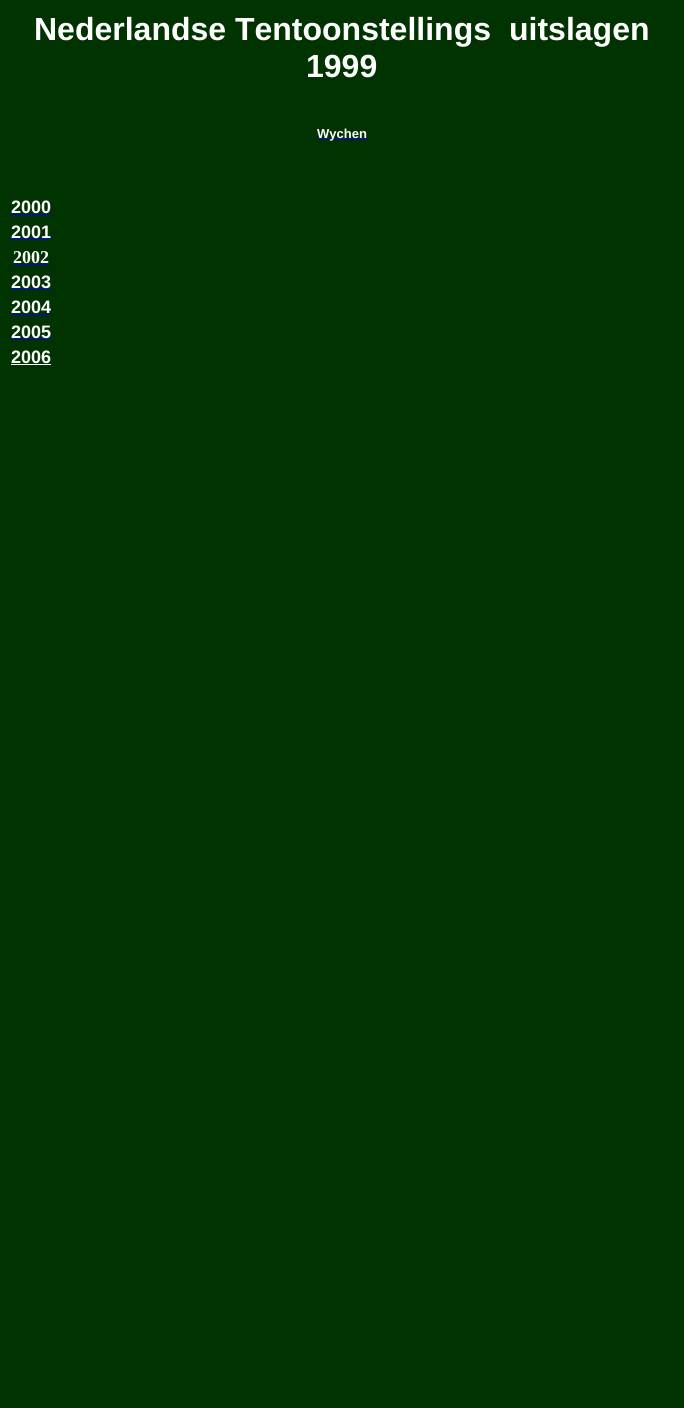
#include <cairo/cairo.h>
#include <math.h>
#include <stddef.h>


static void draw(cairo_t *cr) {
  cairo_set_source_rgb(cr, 0, 51 / 255.0, 0);
  cairo_paint(cr);
  cairo_set_source_rgb(cr, 0, 0, 238 / 255.0);
  cairo_rectangle(cr, 317, 139, 50, 1);
  cairo_fill(cr);
  cairo_rectangle(cr, 11, 214, 40, 1);
  cairo_fill(cr);
  cairo_rectangle(cr, 11, 239, 40, 1);
  cairo_fill(cr);
  cairo_rectangle(cr, 13, 264, 36, 1);
  cairo_fill(cr);
  cairo_rectangle(cr, 11, 289, 40, 1);
  cairo_fill(cr);
  cairo_rectangle(cr, 11, 314, 40, 1);
  cairo_fill(cr);
  cairo_rectangle(cr, 11, 339, 40, 1);
  cairo_fill(cr);
  cairo_set_source_rgb(cr, 1, 1, 1);
  cairo_rectangle(cr, 11, 364, 40, 1);
  cairo_fill(cr);
  cairo_select_font_face(cr, "Liberation Sans", CAIRO_FONT_SLANT_NORMAL, CAIRO_FONT_WEIGHT_BOLD);
  cairo_set_font_size(cr, 32);
  cairo_move_to(cr, 34, 40);
  cairo_show_text(cr, "Nederlandse Tentoonstellings");
  cairo_move_to(cr, 509, 40);
  cairo_show_text(cr, "uitslagen");
  cairo_move_to(cr, 306, 77);
  cairo_show_text(cr, "1999");
  cairo_set_font_size(cr, 13);
  cairo_move_to(cr, 317, 138);
  cairo_show_text(cr, "Wychen");
  cairo_set_font_size(cr, 18);
  cairo_move_to(cr, 11, 213);
  cairo_show_text(cr, "2000");
  cairo_move_to(cr, 11, 238);
  cairo_show_text(cr, "2001");
  cairo_select_font_face(cr, "Liberation Serif", CAIRO_FONT_SLANT_NORMAL, CAIRO_FONT_WEIGHT_BOLD);
  cairo_move_to(cr, 13, 263);
  cairo_show_text(cr, "2002");
  cairo_select_font_face(cr, "Liberation Sans", CAIRO_FONT_SLANT_NORMAL, CAIRO_FONT_WEIGHT_BOLD);
  cairo_move_to(cr, 11, 288);
  cairo_show_text(cr, "2003");
  cairo_move_to(cr, 11, 313);
  cairo_show_text(cr, "2004");
  cairo_move_to(cr, 11, 338);
  cairo_show_text(cr, "2005");
  cairo_move_to(cr, 11, 363);
  cairo_show_text(cr, "2006");
}

int main(void) {
  cairo_surface_t *surface = cairo_image_surface_create(CAIRO_FORMAT_RGB24, 684, 1408);
  cairo_t *cr = cairo_create(surface);
  cairo_font_options_t *options = cairo_font_options_create();
  cairo_font_options_set_hint_metrics(options, CAIRO_HINT_METRICS_OFF);
  cairo_font_options_set_hint_style(options, CAIRO_HINT_STYLE_NONE);
  cairo_set_font_options(cr, options);
  cairo_set_miter_limit(cr, 4);
  draw(cr);
  cairo_surface_write_to_png(surface, "out.png");
  cairo_font_options_destroy(options);
  cairo_destroy(cr);
  cairo_surface_destroy(surface);
  return 0;
}
